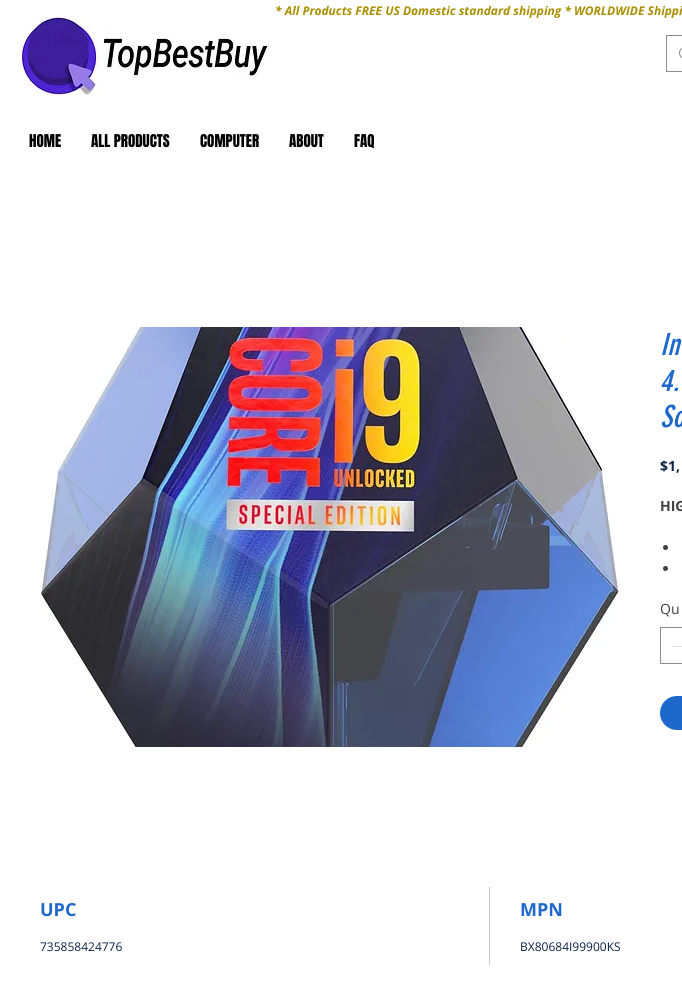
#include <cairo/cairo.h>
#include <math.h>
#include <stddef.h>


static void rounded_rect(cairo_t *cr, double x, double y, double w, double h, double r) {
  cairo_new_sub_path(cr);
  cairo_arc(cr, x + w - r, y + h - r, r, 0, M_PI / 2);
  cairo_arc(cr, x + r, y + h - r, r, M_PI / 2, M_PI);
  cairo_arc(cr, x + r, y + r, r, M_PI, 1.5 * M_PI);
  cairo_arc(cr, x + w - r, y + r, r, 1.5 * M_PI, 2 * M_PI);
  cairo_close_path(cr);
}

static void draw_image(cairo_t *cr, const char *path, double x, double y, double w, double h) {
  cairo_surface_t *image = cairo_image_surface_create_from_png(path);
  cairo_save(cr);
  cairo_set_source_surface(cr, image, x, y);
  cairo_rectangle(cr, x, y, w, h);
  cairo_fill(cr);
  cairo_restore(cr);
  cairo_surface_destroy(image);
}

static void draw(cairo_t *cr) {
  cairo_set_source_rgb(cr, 1, 1, 1);
  cairo_paint(cr);
  draw_image(cr, "images/1.png", 21, 13, 249, 82);
  cairo_rectangle(cr, 666.5, 35.5, 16, 36);
  cairo_set_source_rgb(cr, 141 / 255.0, 141 / 255.0, 141 / 255.0);
  cairo_set_line_width(cr, 1);
  cairo_stroke(cr);
  draw_image(cr, "images/2.png", 679, 48, 3, 10);
  draw_image(cr, "images/3.png", 40, 327, 580, 420);
  cairo_set_source_rgb(cr, 65 / 255.0, 65 / 255.0, 65 / 255.0);
  cairo_arc(cr, 665.5, 547.5, 2.5, 0, 2 * M_PI);
  cairo_fill(cr);
  cairo_arc(cr, 665.5, 568.5, 2.5, 0, 2 * M_PI);
  cairo_fill(cr);
  cairo_rectangle(cr, 660.5, 627.5, 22, 36);
  cairo_set_source_rgb(cr, 141 / 255.0, 141 / 255.0, 141 / 255.0);
  cairo_stroke(cr);
  cairo_set_source_rgb(cr, 227 / 255.0, 227 / 255.0, 227 / 255.0);
  cairo_rectangle(cr, 672, 646, 10, 1);
  cairo_fill(cr);
  cairo_set_source_rgb(cr, 30 / 255.0, 104 / 255.0, 203 / 255.0);
  rounded_rect(cr, 660, 696, 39, 34, 17);
  cairo_fill(cr);
  cairo_set_source_rgb(cr, 199 / 255.0, 199 / 255.0, 199 / 255.0);
  cairo_rectangle(cr, 489, 887, 1, 78);
  cairo_fill(cr);
  cairo_select_font_face(cr, "Open Sans", CAIRO_FONT_SLANT_ITALIC, CAIRO_FONT_WEIGHT_BOLD);
  cairo_set_font_size(cr, 12);
  cairo_set_source_rgb(cr, 170 / 255.0, 143 / 255.0, 0);
  cairo_move_to(cr, 275, 15);
  cairo_show_text(cr, "* All Products FREE US Domestic standard shipping * WORLDWIDE Shippi");
  cairo_select_font_face(cr, "Anton", CAIRO_FONT_SLANT_NORMAL, CAIRO_FONT_WEIGHT_NORMAL);
  cairo_set_font_size(cr, 15);
  cairo_set_source_rgb(cr, 0, 0, 0);
  cairo_move_to(cr, 29, 147);
  cairo_show_text(cr, "HOME");
  cairo_move_to(cr, 91, 147);
  cairo_show_text(cr, "ALL PRODUCTS");
  cairo_move_to(cr, 200, 147);
  cairo_show_text(cr, "COMPUTER");
  cairo_move_to(cr, 289, 147);
  cairo_show_text(cr, "ABOUT");
  cairo_move_to(cr, 354, 147);
  cairo_show_text(cr, "FAQ");
  cairo_select_font_face(cr, "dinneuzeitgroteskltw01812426", CAIRO_FONT_SLANT_ITALIC, CAIRO_FONT_WEIGHT_NORMAL);
  cairo_set_font_size(cr, 30);
  cairo_set_source_rgb(cr, 30 / 255.0, 104 / 255.0, 203 / 255.0);
  cairo_move_to(cr, 660, 355);
  cairo_show_text(cr, "In");
  cairo_move_to(cr, 660, 391);
  cairo_show_text(cr, "4.");
  cairo_move_to(cr, 660, 427);
  cairo_show_text(cr, "So");
  cairo_select_font_face(cr, "Open Sans", CAIRO_FONT_SLANT_NORMAL, CAIRO_FONT_WEIGHT_BOLD);
  cairo_set_font_size(cr, 14);
  cairo_set_source_rgb(cr, 10 / 255.0, 35 / 255.0, 68 / 255.0);
  cairo_move_to(cr, 660, 471);
  cairo_show_text(cr, "$1,");
  cairo_set_source_rgb(cr, 65 / 255.0, 65 / 255.0, 65 / 255.0);
  cairo_move_to(cr, 660, 511);
  cairo_show_text(cr, "HIG");
  cairo_select_font_face(cr, "Open Sans", CAIRO_FONT_SLANT_NORMAL, CAIRO_FONT_WEIGHT_NORMAL);
  cairo_move_to(cr, 660, 614);
  cairo_show_text(cr, "Qu");
  cairo_select_font_face(cr, "Open Sans", CAIRO_FONT_SLANT_NORMAL, CAIRO_FONT_WEIGHT_BOLD);
  cairo_set_font_size(cr, 18);
  cairo_set_source_rgb(cr, 30 / 255.0, 104 / 255.0, 203 / 255.0);
  cairo_move_to(cr, 40, 916);
  cairo_show_text(cr, "UPC");
  cairo_select_font_face(cr, "Open Sans", CAIRO_FONT_SLANT_NORMAL, CAIRO_FONT_WEIGHT_NORMAL);
  cairo_set_font_size(cr, 12);
  cairo_set_source_rgb(cr, 10 / 255.0, 35 / 255.0, 68 / 255.0);
  cairo_move_to(cr, 40, 951);
  cairo_show_text(cr, "735858424776");
  cairo_select_font_face(cr, "Open Sans", CAIRO_FONT_SLANT_NORMAL, CAIRO_FONT_WEIGHT_BOLD);
  cairo_set_font_size(cr, 18);
  cairo_set_source_rgb(cr, 30 / 255.0, 104 / 255.0, 203 / 255.0);
  cairo_move_to(cr, 520, 916);
  cairo_show_text(cr, "MPN");
  cairo_select_font_face(cr, "Open Sans", CAIRO_FONT_SLANT_NORMAL, CAIRO_FONT_WEIGHT_NORMAL);
  cairo_set_font_size(cr, 12);
  cairo_set_source_rgb(cr, 10 / 255.0, 35 / 255.0, 68 / 255.0);
  cairo_move_to(cr, 520, 951);
  cairo_show_text(cr, "BX80684I99900KS");
}

int main(void) {
  cairo_surface_t *surface = cairo_image_surface_create(CAIRO_FORMAT_RGB24, 682, 1002);
  cairo_t *cr = cairo_create(surface);
  cairo_font_options_t *options = cairo_font_options_create();
  cairo_font_options_set_hint_metrics(options, CAIRO_HINT_METRICS_OFF);
  cairo_font_options_set_hint_style(options, CAIRO_HINT_STYLE_NONE);
  cairo_set_font_options(cr, options);
  cairo_set_miter_limit(cr, 4);
  draw(cr);
  cairo_surface_write_to_png(surface, "out.png");
  cairo_font_options_destroy(options);
  cairo_destroy(cr);
  cairo_surface_destroy(surface);
  return 0;
}
